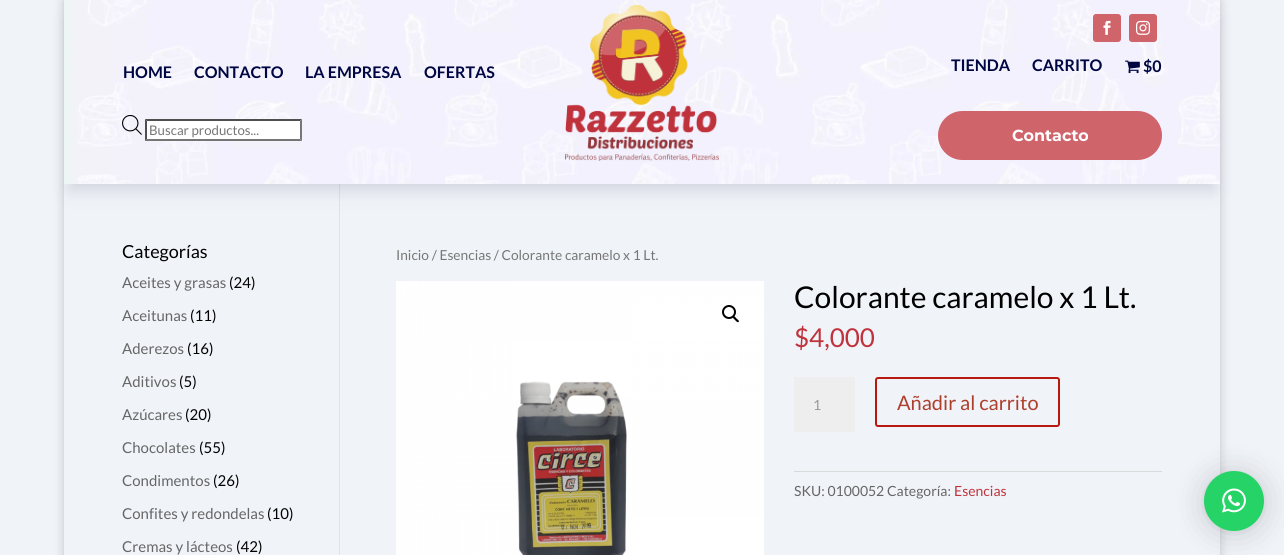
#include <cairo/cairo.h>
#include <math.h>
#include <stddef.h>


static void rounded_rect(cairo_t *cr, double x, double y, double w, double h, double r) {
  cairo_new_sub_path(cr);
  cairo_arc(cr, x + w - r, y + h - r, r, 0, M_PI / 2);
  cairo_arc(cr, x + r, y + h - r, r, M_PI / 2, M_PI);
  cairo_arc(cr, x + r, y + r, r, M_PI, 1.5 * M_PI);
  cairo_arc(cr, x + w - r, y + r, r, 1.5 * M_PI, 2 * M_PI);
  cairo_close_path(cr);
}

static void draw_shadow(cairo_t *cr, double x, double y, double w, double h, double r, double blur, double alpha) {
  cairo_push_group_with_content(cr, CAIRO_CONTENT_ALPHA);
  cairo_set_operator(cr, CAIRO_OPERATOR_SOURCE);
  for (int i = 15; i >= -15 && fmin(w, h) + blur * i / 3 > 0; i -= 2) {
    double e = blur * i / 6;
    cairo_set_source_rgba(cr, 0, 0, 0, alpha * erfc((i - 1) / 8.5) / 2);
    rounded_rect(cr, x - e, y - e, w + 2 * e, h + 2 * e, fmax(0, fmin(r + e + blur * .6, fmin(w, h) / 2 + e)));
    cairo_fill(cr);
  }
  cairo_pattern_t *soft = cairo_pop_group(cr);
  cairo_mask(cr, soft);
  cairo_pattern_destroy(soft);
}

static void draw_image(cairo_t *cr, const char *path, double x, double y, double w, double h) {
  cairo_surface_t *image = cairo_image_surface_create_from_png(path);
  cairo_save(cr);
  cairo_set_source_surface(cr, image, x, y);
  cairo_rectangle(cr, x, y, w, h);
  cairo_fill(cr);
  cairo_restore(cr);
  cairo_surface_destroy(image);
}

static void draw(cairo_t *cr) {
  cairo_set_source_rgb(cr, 240 / 255.0, 243 / 255.0, 248 / 255.0);
  cairo_paint(cr);
  cairo_save(cr);
  cairo_set_fill_rule(cr, CAIRO_FILL_RULE_EVEN_ODD);
  cairo_new_path(cr);
  cairo_move_to(cr, 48, 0);
  cairo_line_to(cr, 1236, 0);
  cairo_line_to(cr, 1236, 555);
  cairo_line_to(cr, 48, 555);
  cairo_close_path(cr);
  cairo_move_to(cr, 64, 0);
  cairo_line_to(cr, 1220, 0);
  cairo_line_to(cr, 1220, 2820);
  cairo_line_to(cr, 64, 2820);
  cairo_close_path(cr);
  cairo_clip(cr);
  cairo_set_source_rgb(cr, 0, 0, 0);
  draw_shadow(cr, 64, 0, 1156, 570, 0, 5, 0.2);
  cairo_restore(cr);
  cairo_set_source_rgb(cr, 226 / 255.0, 226 / 255.0, 226 / 255.0);
  cairo_rectangle(cr, 339, 184, 1, 371);
  cairo_fill(cr);
  cairo_set_source_rgb(cr, 52 / 255.0, 51 / 255.0, 82 / 255.0);
  draw_shadow(cr, 70, 18, 1144, 172, 0, 9, 0.17);
  draw_image(cr, "images/1.png", 64, 0, 1156, 184);
  cairo_set_source_rgb(cr, 207 / 255.0, 100 / 255.0, 107 / 255.0);
  rounded_rect(cr, 1093, 14, 28, 28, 3);
  cairo_fill(cr);
  draw_image(cr, "images/2.png", 1103, 20, 8, 15);
  rounded_rect(cr, 1129, 14, 28, 28, 3);
  cairo_fill(cr);
  draw_image(cr, "images/3.png", 1136, 20, 14, 15);
  draw_image(cr, "images/4.png", 122, 115, 20, 20);
  cairo_set_source_rgb(cr, 1, 1, 1);
  cairo_rectangle(cr, 145, 119, 157, 22);
  cairo_fill(cr);
  cairo_set_source_rgb(cr, 79 / 255.0, 79 / 255.0, 79 / 255.0);
  cairo_new_path(cr);
  cairo_move_to(cr, 145, 119);
  cairo_line_to(cr, 302, 119);
  cairo_line_to(cr, 300, 121);
  cairo_line_to(cr, 147, 121);
  cairo_close_path(cr);
  cairo_fill(cr);
  cairo_set_source_rgb(cr, 118 / 255.0, 118 / 255.0, 118 / 255.0);
  cairo_new_path(cr);
  cairo_move_to(cr, 302, 119);
  cairo_line_to(cr, 302, 141);
  cairo_line_to(cr, 300, 139);
  cairo_line_to(cr, 300, 121);
  cairo_close_path(cr);
  cairo_fill(cr);
  cairo_new_path(cr);
  cairo_move_to(cr, 302, 141);
  cairo_line_to(cr, 145, 141);
  cairo_line_to(cr, 147, 139);
  cairo_line_to(cr, 300, 139);
  cairo_close_path(cr);
  cairo_fill(cr);
  cairo_set_source_rgb(cr, 79 / 255.0, 79 / 255.0, 79 / 255.0);
  cairo_new_path(cr);
  cairo_move_to(cr, 145, 141);
  cairo_line_to(cr, 145, 119);
  cairo_line_to(cr, 147, 121);
  cairo_line_to(cr, 147, 139);
  cairo_close_path(cr);
  cairo_fill(cr);
  draw_image(cr, "images/5.png", 565, 5, 154, 156);
  draw_image(cr, "images/6.png", 1125, 60, 15, 14);
  cairo_set_source_rgb(cr, 207 / 255.0, 100 / 255.0, 107 / 255.0);
  rounded_rect(cr, 938, 111, 224, 49, 24.5);
  cairo_fill(cr);
  draw_image(cr, "images/7.png", 396, 281, 368, 274);
  cairo_arc(cr, 729, 312, 6, 0, 2 * M_PI);
  cairo_set_source_rgb(cr, 0, 0, 0);
  cairo_stroke(cr);
  cairo_new_path(cr);
  cairo_move_to(cr, 733, 316.5);
  cairo_curve_to(cr, 734, 315, 736, 318, 736.5, 318.5);
  cairo_curve_to(cr, 737, 319, 740, 321, 738.5, 322);
  cairo_curve_to(cr, 737.5, 323, 735.5, 320.5, 735, 320);
  cairo_curve_to(cr, 734.5, 319.5, 732, 317.5, 733, 316.5);
  cairo_close_path(cr);
  cairo_fill(cr);
  cairo_set_source_rgb(cr, 238 / 255.0, 238 / 255.0, 238 / 255.0);
  cairo_rectangle(cr, 794, 377, 61, 55);
  cairo_fill(cr);
  rounded_rect(cr, 876, 378, 183, 48, 2);
  cairo_set_source_rgb(cr, 183 / 255.0, 25 / 255.0, 14 / 255.0);
  cairo_stroke(cr);
  cairo_set_source_rgb(cr, 218 / 255.0, 218 / 255.0, 218 / 255.0);
  cairo_rectangle(cr, 794, 471, 368, 1);
  cairo_fill(cr);
  cairo_set_source_rgb(cr, 0, 0, 0);
  draw_shadow(cr, 1204, 473, 60, 60, 30, 16, 0.16);
  draw_shadow(cr, 1204, 472, 60, 60, 30, 3, 0.06);
  cairo_set_source_rgb(cr, 37 / 255.0, 211 / 255.0, 102 / 255.0);
  cairo_arc(cr, 1234, 501, 30, 0, 2 * M_PI);
  cairo_fill(cr);
  draw_image(cr, "images/8.png", 1222, 488, 24, 25);
  cairo_select_font_face(cr, "Lato", CAIRO_FONT_SLANT_NORMAL, CAIRO_FONT_WEIGHT_BOLD);
  cairo_set_font_size(cr, 16);
  cairo_set_source_rgb(cr, 0, 6 / 255.0, 66 / 255.0);
  cairo_move_to(cr, 123, 78);
  cairo_show_text(cr, "HOME");
  cairo_move_to(cr, 194, 78);
  cairo_show_text(cr, "CONTACTO");
  cairo_move_to(cr, 305, 78);
  cairo_show_text(cr, "LA EMPRESA");
  cairo_move_to(cr, 424, 78);
  cairo_show_text(cr, "OFERTAS");
  cairo_select_font_face(cr, "Lato", CAIRO_FONT_SLANT_NORMAL, CAIRO_FONT_WEIGHT_NORMAL);
  cairo_set_font_size(cr, 13.25);
  cairo_set_source_rgb(cr, 118 / 255.0, 118 / 255.0, 118 / 255.0);
  cairo_move_to(cr, 149, 135);
  cairo_show_text(cr, "Buscar productos...");
  cairo_select_font_face(cr, "Lato", CAIRO_FONT_SLANT_NORMAL, CAIRO_FONT_WEIGHT_BOLD);
  cairo_set_font_size(cr, 16);
  cairo_set_source_rgb(cr, 0, 6 / 255.0, 66 / 255.0);
  cairo_move_to(cr, 951, 71);
  cairo_show_text(cr, "TIENDA");
  cairo_move_to(cr, 1032, 71);
  cairo_show_text(cr, "CARRITO");
  cairo_move_to(cr, 1143, 72);
  cairo_show_text(cr, "$0");
  cairo_select_font_face(cr, "Montserrat", CAIRO_FONT_SLANT_NORMAL, CAIRO_FONT_WEIGHT_BOLD);
  cairo_set_source_rgb(cr, 1, 1, 1);
  cairo_move_to(cr, 1012, 141);
  cairo_show_text(cr, "Contacto");
  cairo_select_font_face(cr, "Lato", CAIRO_FONT_SLANT_NORMAL, CAIRO_FONT_WEIGHT_NORMAL);
  cairo_set_font_size(cr, 18);
  cairo_set_source_rgb(cr, 0, 0, 0);
  cairo_move_to(cr, 122, 258);
  cairo_show_text(cr, "Categorías");
  cairo_set_font_size(cr, 15);
  cairo_set_source_rgb(cr, 102 / 255.0, 102 / 255.0, 102 / 255.0);
  cairo_move_to(cr, 122, 288);
  cairo_show_text(cr, "Aceites y grasas");
  cairo_set_source_rgb(cr, 0, 0, 0);
  cairo_move_to(cr, 229, 288);
  cairo_show_text(cr, "(24)");
  cairo_set_source_rgb(cr, 102 / 255.0, 102 / 255.0, 102 / 255.0);
  cairo_move_to(cr, 122, 321);
  cairo_show_text(cr, "Aceitunas");
  cairo_set_source_rgb(cr, 0, 0, 0);
  cairo_move_to(cr, 190, 321);
  cairo_show_text(cr, "(11)");
  cairo_set_source_rgb(cr, 102 / 255.0, 102 / 255.0, 102 / 255.0);
  cairo_move_to(cr, 122, 354);
  cairo_show_text(cr, "Aderezos");
  cairo_set_source_rgb(cr, 0, 0, 0);
  cairo_move_to(cr, 187, 354);
  cairo_show_text(cr, "(16)");
  cairo_set_source_rgb(cr, 102 / 255.0, 102 / 255.0, 102 / 255.0);
  cairo_move_to(cr, 122, 387);
  cairo_show_text(cr, "Aditivos");
  cairo_set_source_rgb(cr, 0, 0, 0);
  cairo_move_to(cr, 179, 387);
  cairo_show_text(cr, "(5)");
  cairo_set_source_rgb(cr, 102 / 255.0, 102 / 255.0, 102 / 255.0);
  cairo_move_to(cr, 122, 420);
  cairo_show_text(cr, "Azúcares");
  cairo_set_source_rgb(cr, 0, 0, 0);
  cairo_move_to(cr, 185, 420);
  cairo_show_text(cr, "(20)");
  cairo_set_source_rgb(cr, 102 / 255.0, 102 / 255.0, 102 / 255.0);
  cairo_move_to(cr, 122, 453);
  cairo_show_text(cr, "Chocolates");
  cairo_set_source_rgb(cr, 0, 0, 0);
  cairo_move_to(cr, 199, 453);
  cairo_show_text(cr, "(55)");
  cairo_set_source_rgb(cr, 102 / 255.0, 102 / 255.0, 102 / 255.0);
  cairo_move_to(cr, 122, 486);
  cairo_show_text(cr, "Condimentos");
  cairo_set_source_rgb(cr, 0, 0, 0);
  cairo_move_to(cr, 213, 486);
  cairo_show_text(cr, "(26)");
  cairo_set_source_rgb(cr, 102 / 255.0, 102 / 255.0, 102 / 255.0);
  cairo_move_to(cr, 122, 519);
  cairo_show_text(cr, "Confites y redondelas");
  cairo_set_source_rgb(cr, 0, 0, 0);
  cairo_move_to(cr, 267, 519);
  cairo_show_text(cr, "(10)");
  cairo_set_source_rgb(cr, 102 / 255.0, 102 / 255.0, 102 / 255.0);
  cairo_move_to(cr, 122, 552);
  cairo_show_text(cr, "Cremas y lácteos");
  cairo_set_source_rgb(cr, 0, 0, 0);
  cairo_move_to(cr, 236, 552);
  cairo_show_text(cr, "(42)");
  cairo_set_font_size(cr, 13.75);
  cairo_set_source_rgb(cr, 118 / 255.0, 118 / 255.0, 118 / 255.0);
  cairo_move_to(cr, 396, 260);
  cairo_show_text(cr, "Inicio / Esencias / Colorante caramelo x 1 Lt.");
  cairo_set_font_size(cr, 30);
  cairo_set_source_rgb(cr, 0, 0, 0);
  cairo_move_to(cr, 794, 308);
  cairo_show_text(cr, "Colorante caramelo x 1 Lt.");
  cairo_set_font_size(cr, 26);
  cairo_set_source_rgb(cr, 192 / 255.0, 50 / 255.0, 60 / 255.0);
  cairo_move_to(cr, 794, 347);
  cairo_show_text(cr, "$4,000");
  cairo_set_font_size(cr, 14);
  cairo_set_source_rgb(cr, 153 / 255.0, 153 / 255.0, 153 / 255.0);
  cairo_move_to(cr, 813, 410);
  cairo_show_text(cr, "1");
  cairo_set_font_size(cr, 20);
  cairo_set_source_rgb(cr, 175 / 255.0, 63 / 255.0, 45 / 255.0);
  cairo_move_to(cr, 897, 410);
  cairo_show_text(cr, "Añadir al carrito");
  cairo_set_font_size(cr, 14);
  cairo_set_source_rgb(cr, 102 / 255.0, 102 / 255.0, 102 / 255.0);
  cairo_move_to(cr, 794, 496);
  cairo_show_text(cr, "SKU: 0100052 Categoría:");
  cairo_set_source_rgb(cr, 192 / 255.0, 50 / 255.0, 60 / 255.0);
  cairo_move_to(cr, 954, 496);
  cairo_show_text(cr, "Esencias");
}

int main(void) {
  cairo_surface_t *surface = cairo_image_surface_create(CAIRO_FORMAT_RGB24, 1284, 555);
  cairo_t *cr = cairo_create(surface);
  cairo_font_options_t *options = cairo_font_options_create();
  cairo_font_options_set_hint_metrics(options, CAIRO_HINT_METRICS_OFF);
  cairo_font_options_set_hint_style(options, CAIRO_HINT_STYLE_NONE);
  cairo_set_font_options(cr, options);
  cairo_set_miter_limit(cr, 4);
  draw(cr);
  cairo_surface_write_to_png(surface, "out.png");
  cairo_font_options_destroy(options);
  cairo_destroy(cr);
  cairo_surface_destroy(surface);
  return 0;
}
